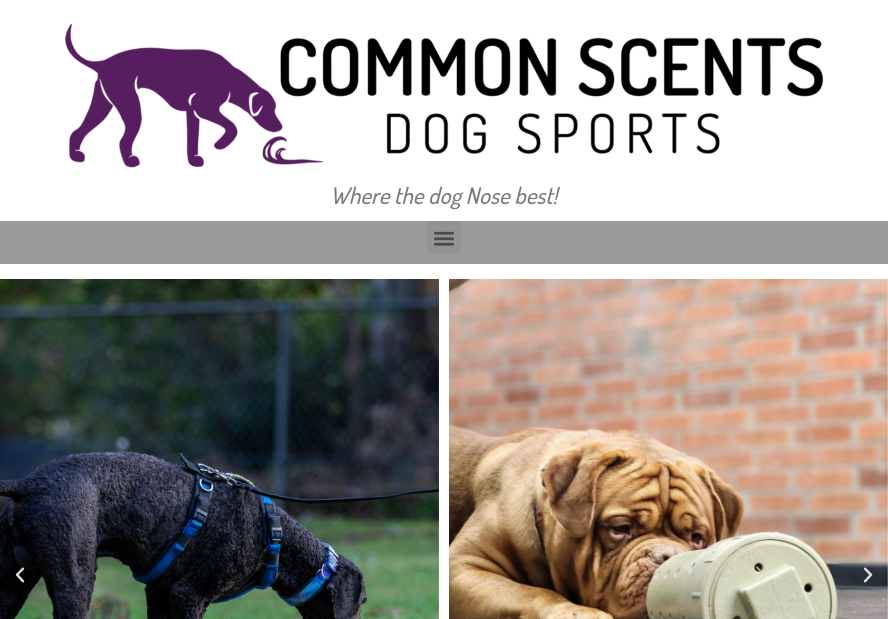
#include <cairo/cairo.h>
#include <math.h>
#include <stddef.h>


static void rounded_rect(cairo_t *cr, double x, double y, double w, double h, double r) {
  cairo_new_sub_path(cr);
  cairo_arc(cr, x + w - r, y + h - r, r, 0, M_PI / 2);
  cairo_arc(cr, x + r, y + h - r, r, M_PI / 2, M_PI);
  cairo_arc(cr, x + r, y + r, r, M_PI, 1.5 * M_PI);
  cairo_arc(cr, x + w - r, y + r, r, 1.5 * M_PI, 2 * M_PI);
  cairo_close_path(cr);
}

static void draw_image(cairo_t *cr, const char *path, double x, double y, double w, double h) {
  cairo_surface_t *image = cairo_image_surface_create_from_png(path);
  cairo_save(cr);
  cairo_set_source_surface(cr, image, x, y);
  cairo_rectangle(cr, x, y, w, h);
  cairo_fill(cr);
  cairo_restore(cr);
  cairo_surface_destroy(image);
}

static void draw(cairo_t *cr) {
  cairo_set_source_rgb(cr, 1, 1, 1);
  cairo_paint(cr);
  draw_image(cr, "images/1.png", 64, 23, 760, 145);
  cairo_set_source_rgb(cr, 155 / 255.0, 155 / 255.0, 155 / 255.0);
  cairo_rectangle(cr, 0, 221, 888, 43);
  cairo_fill(cr);
  cairo_set_source_rgb(cr, 147 / 255.0, 147 / 255.0, 147 / 255.0);
  rounded_rect(cr, 427, 221, 34, 33, 3);
  cairo_fill(cr);
  draw_image(cr, "images/2.png", 434, 231, 20, 15);
  draw_image(cr, "images/3.png", 0, 279, 439, 340);
  draw_image(cr, "images/4.png", 449, 279, 439, 340);
  draw_image(cr, "images/5.png", 15, 567, 10, 16);
  draw_image(cr, "images/6.png", 863, 567, 10, 16);
  cairo_select_font_face(cr, "Dosis Medium", CAIRO_FONT_SLANT_ITALIC, CAIRO_FONT_WEIGHT_NORMAL);
  cairo_set_font_size(cr, 23);
  cairo_set_source_rgb(cr, 122 / 255.0, 122 / 255.0, 122 / 255.0);
  cairo_move_to(cr, 330, 204);
  cairo_show_text(cr, "Where the dog Nose best!");
}

int main(void) {
  cairo_surface_t *surface = cairo_image_surface_create(CAIRO_FORMAT_RGB24, 888, 619);
  cairo_t *cr = cairo_create(surface);
  cairo_font_options_t *options = cairo_font_options_create();
  cairo_font_options_set_hint_metrics(options, CAIRO_HINT_METRICS_OFF);
  cairo_font_options_set_hint_style(options, CAIRO_HINT_STYLE_NONE);
  cairo_set_font_options(cr, options);
  cairo_set_miter_limit(cr, 4);
  draw(cr);
  cairo_surface_write_to_png(surface, "out.png");
  cairo_font_options_destroy(options);
  cairo_destroy(cr);
  cairo_surface_destroy(surface);
  return 0;
}
